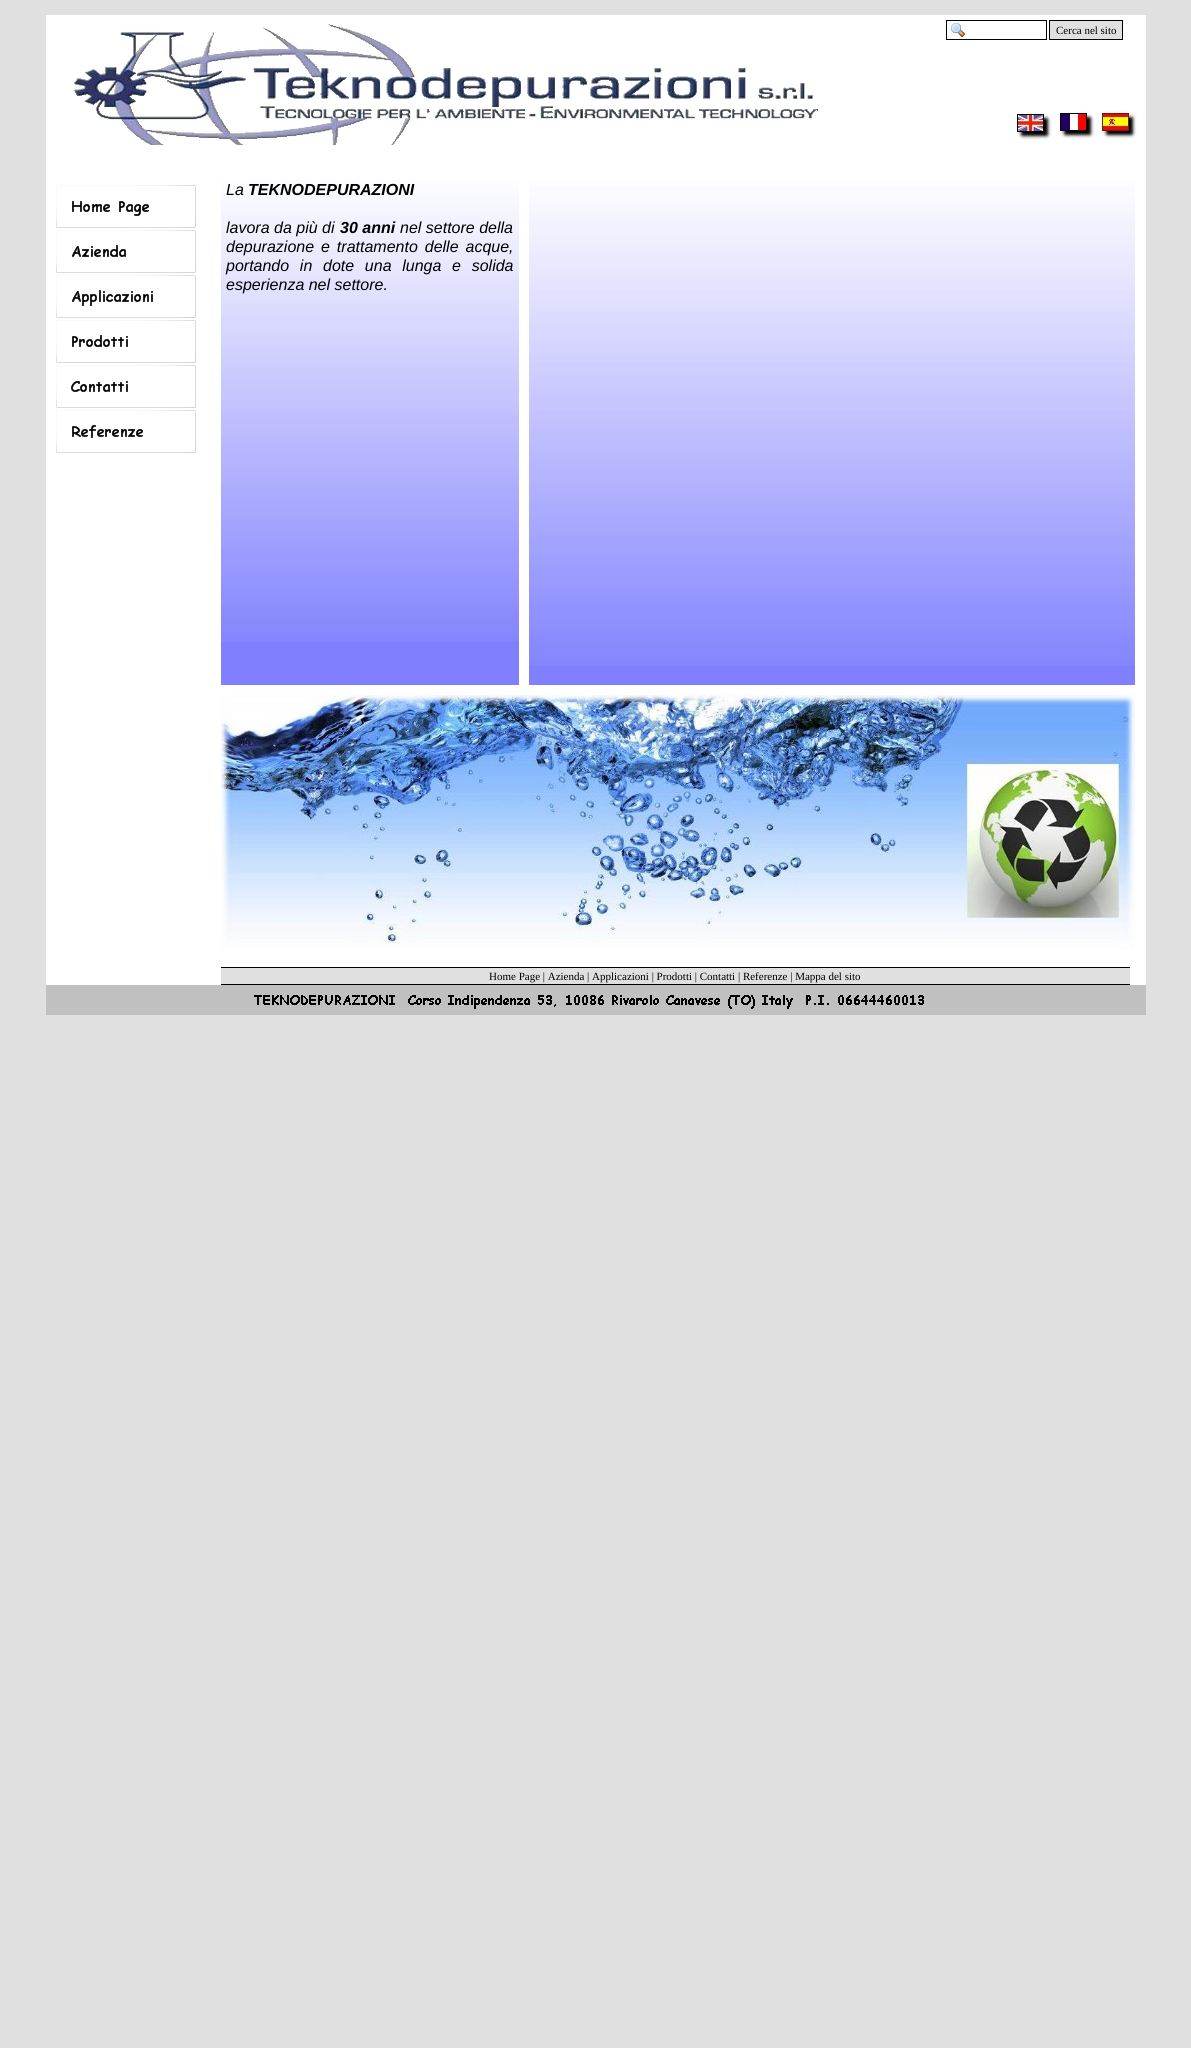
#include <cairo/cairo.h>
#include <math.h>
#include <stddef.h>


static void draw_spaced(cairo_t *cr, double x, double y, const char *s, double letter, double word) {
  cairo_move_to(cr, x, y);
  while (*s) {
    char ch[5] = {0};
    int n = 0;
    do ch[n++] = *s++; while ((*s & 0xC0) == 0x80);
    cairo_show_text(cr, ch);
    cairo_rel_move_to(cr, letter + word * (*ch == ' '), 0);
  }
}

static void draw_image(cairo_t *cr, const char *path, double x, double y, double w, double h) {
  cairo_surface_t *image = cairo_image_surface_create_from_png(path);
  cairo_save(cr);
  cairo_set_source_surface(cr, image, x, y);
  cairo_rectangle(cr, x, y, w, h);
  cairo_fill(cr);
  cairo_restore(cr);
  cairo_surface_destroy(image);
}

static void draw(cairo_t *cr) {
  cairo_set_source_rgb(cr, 224 / 255.0, 224 / 255.0, 224 / 255.0);
  cairo_paint(cr);
  cairo_set_source_rgb(cr, 1, 1, 1);
  cairo_rectangle(cr, 46, 15, 1100, 970);
  cairo_fill(cr);
  draw_image(cr, "images/1.png", 74, 24, 1063, 121);
  draw_image(cr, "images/2.png", 951, 23, 14, 14);
  cairo_rectangle(cr, 946.5, 20.5, 100, 19);
  cairo_set_source_rgb(cr, 0, 0, 0);
  cairo_set_line_width(cr, 1);
  cairo_stroke(cr);
  cairo_set_source_rgb(cr, 224 / 255.0, 224 / 255.0, 224 / 255.0);
  cairo_rectangle(cr, 1049.5, 20.5, 73, 19);
  cairo_fill_preserve(cr);
  cairo_set_source_rgb(cr, 0, 0, 0);
  cairo_stroke(cr);
  draw_image(cr, "images/3.png", 56, 185, 140, 43);
  draw_image(cr, "images/4.png", 56, 230, 140, 43);
  draw_image(cr, "images/5.png", 56, 275, 140, 43);
  draw_image(cr, "images/6.png", 56, 320, 140, 43);
  draw_image(cr, "images/7.png", 56, 365, 140, 43);
  draw_image(cr, "images/8.png", 56, 410, 140, 43);
  cairo_set_source_rgb(cr, 128 / 255.0, 128 / 255.0, 1);
  cairo_rectangle(cr, 221, 642, 298, 43);
  cairo_fill(cr);
  draw_image(cr, "images/9.png", 221, 175, 298, 467);
  cairo_rectangle(cr, 529, 666, 606, 19);
  cairo_fill(cr);
  draw_image(cr, "images/10.png", 529, 175, 606, 491);
  draw_image(cr, "images/11.png", 221, 695, 914, 254);
  cairo_set_source_rgb(cr, 224 / 255.0, 224 / 255.0, 224 / 255.0);
  cairo_rectangle(cr, 221, 968, 909, 16);
  cairo_fill(cr);
  cairo_set_source_rgb(cr, 0, 0, 0);
  cairo_rectangle(cr, 221, 967, 909, 1);
  cairo_fill(cr);
  cairo_rectangle(cr, 221, 984, 909, 1);
  cairo_fill(cr);
  cairo_set_source_rgb(cr, 192 / 255.0, 192 / 255.0, 192 / 255.0);
  cairo_rectangle(cr, 46, 985, 1100, 30);
  cairo_fill(cr);
  draw_image(cr, "images/12.png", 254, 995, 670, 14);
  cairo_select_font_face(cr, "Liberation Serif", CAIRO_FONT_SLANT_NORMAL, CAIRO_FONT_WEIGHT_NORMAL);
  cairo_set_font_size(cr, 11);
  cairo_set_source_rgb(cr, 0, 0, 0);
  cairo_move_to(cr, 1056, 34);
  cairo_show_text(cr, "Cerca nel sito");
  cairo_select_font_face(cr, "Liberation Sans", CAIRO_FONT_SLANT_ITALIC, CAIRO_FONT_WEIGHT_NORMAL);
  cairo_set_font_size(cr, 16);
  cairo_move_to(cr, 226, 195);
  cairo_show_text(cr, "La");
  cairo_select_font_face(cr, "Liberation Sans", CAIRO_FONT_SLANT_ITALIC, CAIRO_FONT_WEIGHT_BOLD);
  cairo_move_to(cr, 248, 195);
  cairo_show_text(cr, "TEKNODEPURAZIONI");
  cairo_select_font_face(cr, "Liberation Sans", CAIRO_FONT_SLANT_ITALIC, CAIRO_FONT_WEIGHT_NORMAL);
  cairo_move_to(cr, 226, 233);
  cairo_show_text(cr, "lavora da più di");
  cairo_select_font_face(cr, "Liberation Sans", CAIRO_FONT_SLANT_ITALIC, CAIRO_FONT_WEIGHT_BOLD);
  cairo_move_to(cr, 340, 233);
  cairo_show_text(cr, "30 anni");
  cairo_select_font_face(cr, "Liberation Sans", CAIRO_FONT_SLANT_ITALIC, CAIRO_FONT_WEIGHT_NORMAL);
  cairo_move_to(cr, 400, 233);
  cairo_show_text(cr, "nel settore della");
  draw_spaced(cr, 226, 252, "depurazione e trattamento delle acque,", 0, 2.5);
  draw_spaced(cr, 226, 271, "portando in dote una lunga e solida", 0, 6.25);
  cairo_move_to(cr, 226, 290);
  cairo_show_text(cr, "esperienza nel settore.");
  cairo_select_font_face(cr, "Liberation Serif", CAIRO_FONT_SLANT_NORMAL, CAIRO_FONT_WEIGHT_NORMAL);
  cairo_set_font_size(cr, 11);
  cairo_move_to(cr, 489, 980);
  cairo_show_text(cr, "Home Page | Azienda | Applicazioni | Prodotti | Contatti | Referenze | Mappa del sito");
}

int main(void) {
  cairo_surface_t *surface = cairo_image_surface_create(CAIRO_FORMAT_RGB24, 1191, 2048);
  cairo_t *cr = cairo_create(surface);
  cairo_font_options_t *options = cairo_font_options_create();
  cairo_font_options_set_hint_metrics(options, CAIRO_HINT_METRICS_OFF);
  cairo_font_options_set_hint_style(options, CAIRO_HINT_STYLE_NONE);
  cairo_set_font_options(cr, options);
  cairo_set_miter_limit(cr, 4);
  draw(cr);
  cairo_surface_write_to_png(surface, "out.png");
  cairo_font_options_destroy(options);
  cairo_destroy(cr);
  cairo_surface_destroy(surface);
  return 0;
}
